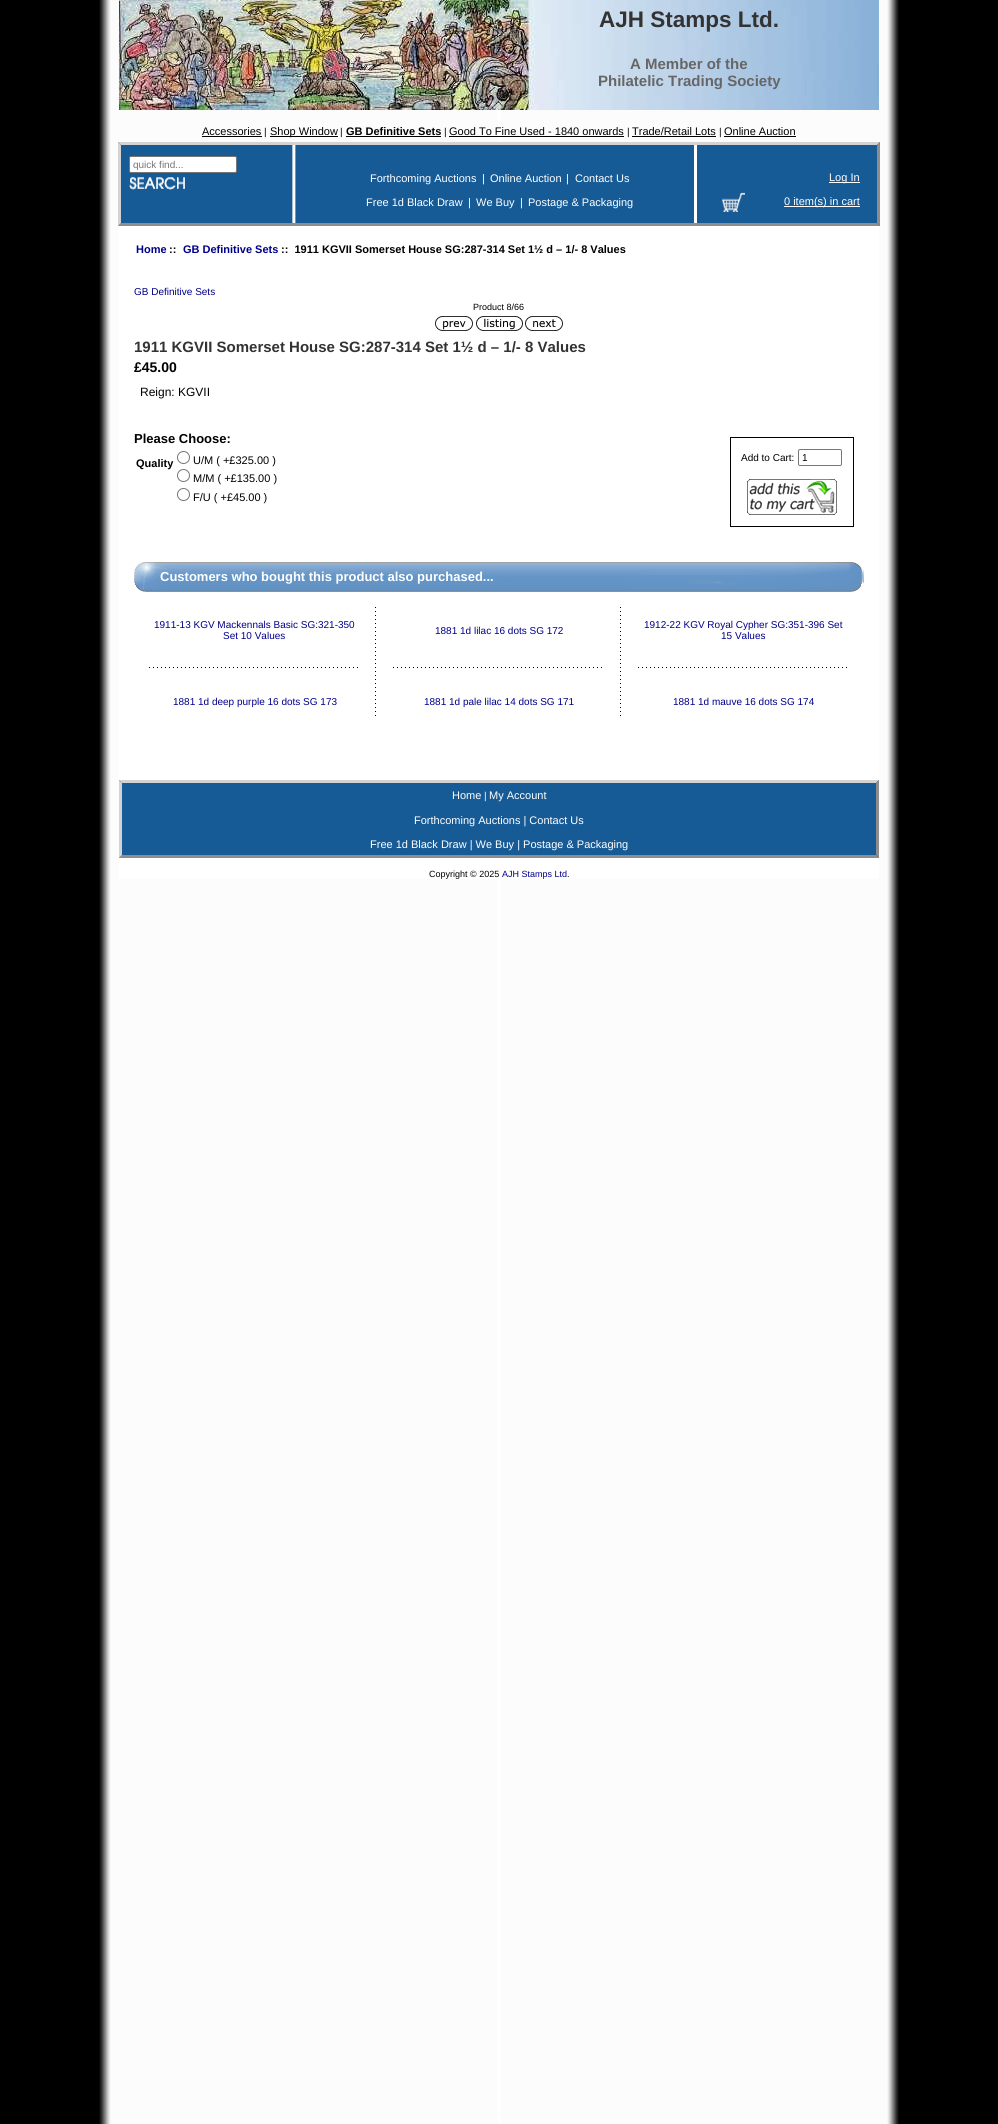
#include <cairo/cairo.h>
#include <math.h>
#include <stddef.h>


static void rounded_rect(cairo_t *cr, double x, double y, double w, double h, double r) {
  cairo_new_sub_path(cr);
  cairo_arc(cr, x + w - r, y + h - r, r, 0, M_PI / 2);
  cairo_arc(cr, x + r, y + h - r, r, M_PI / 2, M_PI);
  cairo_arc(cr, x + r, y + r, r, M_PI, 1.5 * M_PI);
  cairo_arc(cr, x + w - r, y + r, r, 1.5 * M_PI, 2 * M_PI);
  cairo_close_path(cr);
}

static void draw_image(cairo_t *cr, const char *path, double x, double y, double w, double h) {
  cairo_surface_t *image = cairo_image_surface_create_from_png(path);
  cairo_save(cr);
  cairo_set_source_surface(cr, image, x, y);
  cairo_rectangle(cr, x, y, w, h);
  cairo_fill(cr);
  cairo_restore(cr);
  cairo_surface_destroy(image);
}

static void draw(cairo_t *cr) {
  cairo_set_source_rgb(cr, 1, 1, 1);
  cairo_paint(cr);
  draw_image(cr, "images/1.png", 0, 0, 998, 2124);
  draw_image(cr, "images/2.png", 119, 0, 760, 110);
  cairo_set_source_rgb(cr, 0, 0, 0);
  cairo_rectangle(cr, 202, 136, 60, 1);
  cairo_fill(cr);
  cairo_rectangle(cr, 270, 136, 68, 1);
  cairo_fill(cr);
  cairo_rectangle(cr, 346, 136, 95, 1);
  cairo_fill(cr);
  cairo_rectangle(cr, 449, 136, 175, 1);
  cairo_fill(cr);
  cairo_rectangle(cr, 632, 136, 84, 1);
  cairo_fill(cr);
  cairo_rectangle(cr, 724, 136, 72, 1);
  cairo_fill(cr);
  draw_image(cr, "images/3.png", 118, 142, 762, 84);
  cairo_set_source_rgb(cr, 211 / 255.0, 211 / 255.0, 211 / 255.0);
  cairo_new_path(cr);
  cairo_move_to(cr, 118, 142);
  cairo_line_to(cr, 880, 142);
  cairo_line_to(cr, 877, 145);
  cairo_line_to(cr, 121, 145);
  cairo_close_path(cr);
  cairo_fill(cr);
  cairo_set_source_rgb(cr, 141 / 255.0, 141 / 255.0, 141 / 255.0);
  cairo_new_path(cr);
  cairo_move_to(cr, 880, 142);
  cairo_line_to(cr, 880, 226);
  cairo_line_to(cr, 877, 223);
  cairo_line_to(cr, 877, 145);
  cairo_close_path(cr);
  cairo_fill(cr);
  cairo_new_path(cr);
  cairo_move_to(cr, 880, 226);
  cairo_line_to(cr, 118, 226);
  cairo_line_to(cr, 121, 223);
  cairo_line_to(cr, 877, 223);
  cairo_close_path(cr);
  cairo_fill(cr);
  cairo_set_source_rgb(cr, 211 / 255.0, 211 / 255.0, 211 / 255.0);
  cairo_new_path(cr);
  cairo_move_to(cr, 118, 226);
  cairo_line_to(cr, 118, 142);
  cairo_line_to(cr, 121, 145);
  cairo_line_to(cr, 121, 223);
  cairo_close_path(cr);
  cairo_fill(cr);
  cairo_set_source_rgb(cr, 1, 1, 1);
  rounded_rect(cr, 129.5, 156.5, 107, 16, 1.5);
  cairo_fill_preserve(cr);
  cairo_set_source_rgb(cr, 118 / 255.0, 118 / 255.0, 118 / 255.0);
  cairo_set_line_width(cr, 1);
  cairo_stroke(cr);
  draw_image(cr, "images/4.png", 129, 177, 56, 13);
  draw_image(cr, "images/5.png", 722, 192, 23, 20);
  cairo_set_source_rgb(cr, 1, 1, 1);
  cairo_rectangle(cr, 829, 182, 31, 1);
  cairo_fill(cr);
  cairo_rectangle(cr, 784, 206, 76, 1);
  cairo_fill(cr);
  cairo_rectangle(cr, 119, 226, 760, 653);
  cairo_fill(cr);
  draw_image(cr, "images/6.png", 435, 316, 38, 15);
  draw_image(cr, "images/7.png", 476, 316, 47, 15);
  draw_image(cr, "images/8.png", 525, 316, 38, 15);
  cairo_arc(cr, 183.5, 457.5, 6, 0, 2 * M_PI);
  cairo_set_source_rgb(cr, 118 / 255.0, 118 / 255.0, 118 / 255.0);
  cairo_stroke(cr);
  cairo_arc(cr, 183.5, 475.5, 6, 0, 2 * M_PI);
  cairo_stroke(cr);
  cairo_arc(cr, 183.5, 494.5, 6, 0, 2 * M_PI);
  cairo_stroke(cr);
  cairo_rectangle(cr, 730.5, 437.5, 123, 89);
  cairo_set_source_rgb(cr, 0, 0, 0);
  cairo_stroke(cr);
  rounded_rect(cr, 798.5, 449.5, 43, 16, 1.5);
  cairo_set_source_rgb(cr, 118 / 255.0, 118 / 255.0, 118 / 255.0);
  cairo_stroke(cr);
  draw_image(cr, "images/9.png", 747, 479, 90, 36);
  draw_image(cr, "images/10.png", 134, 562, 730, 30);
  draw_image(cr, "images/11.png", 375, 607, 1, 109);
  draw_image(cr, "images/11.png", 620, 607, 1, 109);
  draw_image(cr, "images/12.png", 149, 667, 209, 1);
  draw_image(cr, "images/12.png", 393, 667, 209, 1);
  draw_image(cr, "images/12.png", 638, 667, 209, 1);
  cairo_set_source_rgb(cr, 23 / 255.0, 91 / 255.0, 150 / 255.0);
  cairo_rectangle(cr, 119, 780, 760, 78);
  cairo_fill(cr);
  cairo_set_source_rgb(cr, 211 / 255.0, 211 / 255.0, 211 / 255.0);
  cairo_new_path(cr);
  cairo_move_to(cr, 119, 780);
  cairo_line_to(cr, 879, 780);
  cairo_line_to(cr, 876, 783);
  cairo_line_to(cr, 122, 783);
  cairo_close_path(cr);
  cairo_fill(cr);
  cairo_set_source_rgb(cr, 141 / 255.0, 141 / 255.0, 141 / 255.0);
  cairo_new_path(cr);
  cairo_move_to(cr, 879, 780);
  cairo_line_to(cr, 879, 858);
  cairo_line_to(cr, 876, 855);
  cairo_line_to(cr, 876, 783);
  cairo_close_path(cr);
  cairo_fill(cr);
  cairo_new_path(cr);
  cairo_move_to(cr, 879, 858);
  cairo_line_to(cr, 119, 858);
  cairo_line_to(cr, 122, 855);
  cairo_line_to(cr, 876, 855);
  cairo_close_path(cr);
  cairo_fill(cr);
  cairo_set_source_rgb(cr, 211 / 255.0, 211 / 255.0, 211 / 255.0);
  cairo_new_path(cr);
  cairo_move_to(cr, 119, 858);
  cairo_line_to(cr, 119, 780);
  cairo_line_to(cr, 122, 783);
  cairo_line_to(cr, 122, 855);
  cairo_close_path(cr);
  cairo_fill(cr);
  cairo_select_font_face(cr, "Liberation Sans", CAIRO_FONT_SLANT_NORMAL, CAIRO_FONT_WEIGHT_BOLD);
  cairo_set_font_size(cr, 22.5);
  cairo_set_source_rgb(cr, 51 / 255.0, 51 / 255.0, 51 / 255.0);
  cairo_move_to(cr, 599, 27);
  cairo_show_text(cr, "AJH Stamps Ltd.");
  cairo_set_font_size(cr, 15);
  cairo_set_source_rgb(cr, 102 / 255.0, 102 / 255.0, 102 / 255.0);
  cairo_move_to(cr, 630, 69);
  cairo_show_text(cr, "A Member of the");
  cairo_move_to(cr, 598, 86);
  cairo_show_text(cr, "Philatelic Trading Society");
  cairo_select_font_face(cr, "Liberation Sans", CAIRO_FONT_SLANT_NORMAL, CAIRO_FONT_WEIGHT_NORMAL);
  cairo_set_font_size(cr, 11);
  cairo_set_source_rgb(cr, 0, 0, 0);
  cairo_move_to(cr, 202, 135);
  cairo_show_text(cr, "Accessories");
  cairo_set_font_size(cr, 10);
  cairo_move_to(cr, 264, 135);
  cairo_show_text(cr, "|");
  cairo_set_font_size(cr, 11);
  cairo_move_to(cr, 270, 135);
  cairo_show_text(cr, "Shop Window");
  cairo_set_font_size(cr, 10);
  cairo_move_to(cr, 340, 135);
  cairo_show_text(cr, "|");
  cairo_select_font_face(cr, "Liberation Sans", CAIRO_FONT_SLANT_NORMAL, CAIRO_FONT_WEIGHT_BOLD);
  cairo_set_font_size(cr, 11);
  cairo_move_to(cr, 346, 135);
  cairo_show_text(cr, "GB Definitive Sets");
  cairo_select_font_face(cr, "Liberation Sans", CAIRO_FONT_SLANT_NORMAL, CAIRO_FONT_WEIGHT_NORMAL);
  cairo_set_font_size(cr, 10);
  cairo_move_to(cr, 444, 135);
  cairo_show_text(cr, "|");
  cairo_set_font_size(cr, 11);
  cairo_move_to(cr, 449, 135);
  cairo_show_text(cr, "Good To Fine Used - 1840 onwards");
  cairo_set_font_size(cr, 10);
  cairo_move_to(cr, 627, 135);
  cairo_show_text(cr, "|");
  cairo_set_font_size(cr, 11);
  cairo_move_to(cr, 632, 135);
  cairo_show_text(cr, "Trade/Retail Lots");
  cairo_set_font_size(cr, 10);
  cairo_move_to(cr, 719, 135);
  cairo_show_text(cr, "|");
  cairo_set_font_size(cr, 11);
  cairo_move_to(cr, 724, 135);
  cairo_show_text(cr, "Online Auction");
  cairo_set_font_size(cr, 10);
  cairo_set_source_rgb(cr, 117 / 255.0, 117 / 255.0, 117 / 255.0);
  cairo_move_to(cr, 133, 168);
  cairo_show_text(cr, "quick find...");
  cairo_set_font_size(cr, 11);
  cairo_set_source_rgb(cr, 1, 1, 1);
  cairo_move_to(cr, 370, 182);
  cairo_show_text(cr, "Forthcoming Auctions");
  cairo_move_to(cr, 482, 182);
  cairo_show_text(cr, "|");
  cairo_move_to(cr, 490, 182);
  cairo_show_text(cr, "Online Auction");
  cairo_move_to(cr, 566, 182);
  cairo_show_text(cr, "|");
  cairo_move_to(cr, 575, 182);
  cairo_show_text(cr, "Contact Us");
  cairo_move_to(cr, 366, 206);
  cairo_show_text(cr, "Free 1d Black Draw");
  cairo_move_to(cr, 468, 206);
  cairo_show_text(cr, "|");
  cairo_move_to(cr, 476, 206);
  cairo_show_text(cr, "We Buy");
  cairo_move_to(cr, 520, 206);
  cairo_show_text(cr, "|");
  cairo_move_to(cr, 528, 206);
  cairo_show_text(cr, "Postage & Packaging");
  cairo_move_to(cr, 829, 181);
  cairo_show_text(cr, "Log In");
  cairo_move_to(cr, 784, 205);
  cairo_show_text(cr, "0 item(s) in cart");
  cairo_select_font_face(cr, "Liberation Sans", CAIRO_FONT_SLANT_NORMAL, CAIRO_FONT_WEIGHT_BOLD);
  cairo_set_source_rgb(cr, 0, 0, 139 / 255.0);
  cairo_move_to(cr, 136, 253);
  cairo_show_text(cr, "Home");
  cairo_set_source_rgb(cr, 0, 0, 0);
  cairo_move_to(cr, 169, 253);
  cairo_show_text(cr, "::");
  cairo_set_source_rgb(cr, 0, 0, 139 / 255.0);
  cairo_move_to(cr, 183, 253);
  cairo_show_text(cr, "GB Definitive Sets");
  cairo_set_source_rgb(cr, 0, 0, 0);
  cairo_move_to(cr, 281, 253);
  cairo_show_text(cr, "::  1911 KGVII Somerset House SG:287-314 Set 1½ d – 1/- 8 Values");
  cairo_select_font_face(cr, "Liberation Sans", CAIRO_FONT_SLANT_NORMAL, CAIRO_FONT_WEIGHT_NORMAL);
  cairo_set_font_size(cr, 10);
  cairo_set_source_rgb(cr, 0, 0, 139 / 255.0);
  cairo_move_to(cr, 134, 295);
  cairo_show_text(cr, "GB Definitive Sets");
  cairo_set_font_size(cr, 9);
  cairo_set_source_rgb(cr, 0, 0, 0);
  cairo_move_to(cr, 473, 310);
  cairo_show_text(cr, "Product 8/66");
  cairo_select_font_face(cr, "Liberation Sans", CAIRO_FONT_SLANT_NORMAL, CAIRO_FONT_WEIGHT_BOLD);
  cairo_set_font_size(cr, 15);
  cairo_set_source_rgb(cr, 51 / 255.0, 51 / 255.0, 51 / 255.0);
  cairo_move_to(cr, 134, 352);
  cairo_show_text(cr, "1911 KGVII Somerset House SG:287-314 Set 1½ d – 1/- 8 Values");
  cairo_set_font_size(cr, 14);
  cairo_set_source_rgb(cr, 0, 0, 0);
  cairo_move_to(cr, 134, 372);
  cairo_show_text(cr, "£45.00");
  cairo_select_font_face(cr, "Liberation Sans", CAIRO_FONT_SLANT_NORMAL, CAIRO_FONT_WEIGHT_NORMAL);
  cairo_set_font_size(cr, 12);
  cairo_move_to(cr, 140, 396);
  cairo_show_text(cr, "Reign: KGVII");
  cairo_select_font_face(cr, "Liberation Sans", CAIRO_FONT_SLANT_NORMAL, CAIRO_FONT_WEIGHT_BOLD);
  cairo_set_font_size(cr, 13);
  cairo_move_to(cr, 134, 443);
  cairo_show_text(cr, "Please Choose:");
  cairo_set_font_size(cr, 11);
  cairo_move_to(cr, 136, 467);
  cairo_show_text(cr, "Quality");
  cairo_select_font_face(cr, "Liberation Sans", CAIRO_FONT_SLANT_NORMAL, CAIRO_FONT_WEIGHT_NORMAL);
  cairo_move_to(cr, 193, 464);
  cairo_show_text(cr, "U/M ( +£325.00 )");
  cairo_move_to(cr, 193, 482);
  cairo_show_text(cr, "M/M ( +£135.00 )");
  cairo_move_to(cr, 193, 501);
  cairo_show_text(cr, "F/U ( +£45.00 )");
  cairo_set_font_size(cr, 10);
  cairo_move_to(cr, 741, 461);
  cairo_show_text(cr, "Add to Cart:");
  cairo_move_to(cr, 802, 461);
  cairo_show_text(cr, "1");
  cairo_select_font_face(cr, "Liberation Sans", CAIRO_FONT_SLANT_NORMAL, CAIRO_FONT_WEIGHT_BOLD);
  cairo_set_font_size(cr, 13);
  cairo_set_source_rgb(cr, 1, 1, 1);
  cairo_move_to(cr, 160, 581);
  cairo_show_text(cr, "Customers who bought this product also purchased...");
  cairo_select_font_face(cr, "Liberation Sans", CAIRO_FONT_SLANT_NORMAL, CAIRO_FONT_WEIGHT_NORMAL);
  cairo_set_font_size(cr, 10);
  cairo_set_source_rgb(cr, 0, 0, 139 / 255.0);
  cairo_move_to(cr, 154, 628);
  cairo_show_text(cr, "1911-13 KGV Mackennals Basic SG:321-350");
  cairo_move_to(cr, 223, 639);
  cairo_show_text(cr, "Set 10 Values");
  cairo_move_to(cr, 435, 634);
  cairo_show_text(cr, "1881 1d lilac 16 dots SG 172");
  cairo_move_to(cr, 644, 628);
  cairo_show_text(cr, "1912-22 KGV Royal Cypher SG:351-396 Set");
  cairo_move_to(cr, 721, 639);
  cairo_show_text(cr, "15 Values");
  cairo_move_to(cr, 173, 705);
  cairo_show_text(cr, "1881 1d deep purple 16 dots SG 173");
  cairo_move_to(cr, 424, 705);
  cairo_show_text(cr, "1881 1d pale lilac 14 dots SG 171");
  cairo_move_to(cr, 673, 705);
  cairo_show_text(cr, "1881 1d mauve 16 dots SG 174");
  cairo_set_font_size(cr, 11);
  cairo_set_source_rgb(cr, 1, 1, 1);
  cairo_move_to(cr, 452, 799);
  cairo_show_text(cr, "Home");
  cairo_set_font_size(cr, 10);
  cairo_move_to(cr, 484, 799);
  cairo_show_text(cr, "|");
  cairo_set_font_size(cr, 11);
  cairo_move_to(cr, 489, 799);
  cairo_show_text(cr, "My Account");
  cairo_move_to(cr, 414, 824);
  cairo_show_text(cr, "Forthcoming Auctions | Contact Us");
  cairo_move_to(cr, 370, 848);
  cairo_show_text(cr, "Free 1d Black Draw | We Buy | Postage & Packaging");
  cairo_set_font_size(cr, 9);
  cairo_set_source_rgb(cr, 0, 0, 0);
  cairo_move_to(cr, 429, 877);
  cairo_show_text(cr, "Copyright © 2025");
  cairo_set_source_rgb(cr, 0, 0, 139 / 255.0);
  cairo_move_to(cr, 502, 877);
  cairo_show_text(cr, "AJH Stamps Ltd");
  cairo_set_source_rgb(cr, 0, 0, 0);
  cairo_move_to(cr, 567, 877);
  cairo_show_text(cr, ".");
}

int main(void) {
  cairo_surface_t *surface = cairo_image_surface_create(CAIRO_FORMAT_RGB24, 998, 2124);
  cairo_t *cr = cairo_create(surface);
  cairo_font_options_t *options = cairo_font_options_create();
  cairo_font_options_set_hint_metrics(options, CAIRO_HINT_METRICS_OFF);
  cairo_font_options_set_hint_style(options, CAIRO_HINT_STYLE_NONE);
  cairo_set_font_options(cr, options);
  cairo_set_miter_limit(cr, 4);
  draw(cr);
  cairo_surface_write_to_png(surface, "out.png");
  cairo_font_options_destroy(options);
  cairo_destroy(cr);
  cairo_surface_destroy(surface);
  return 0;
}
